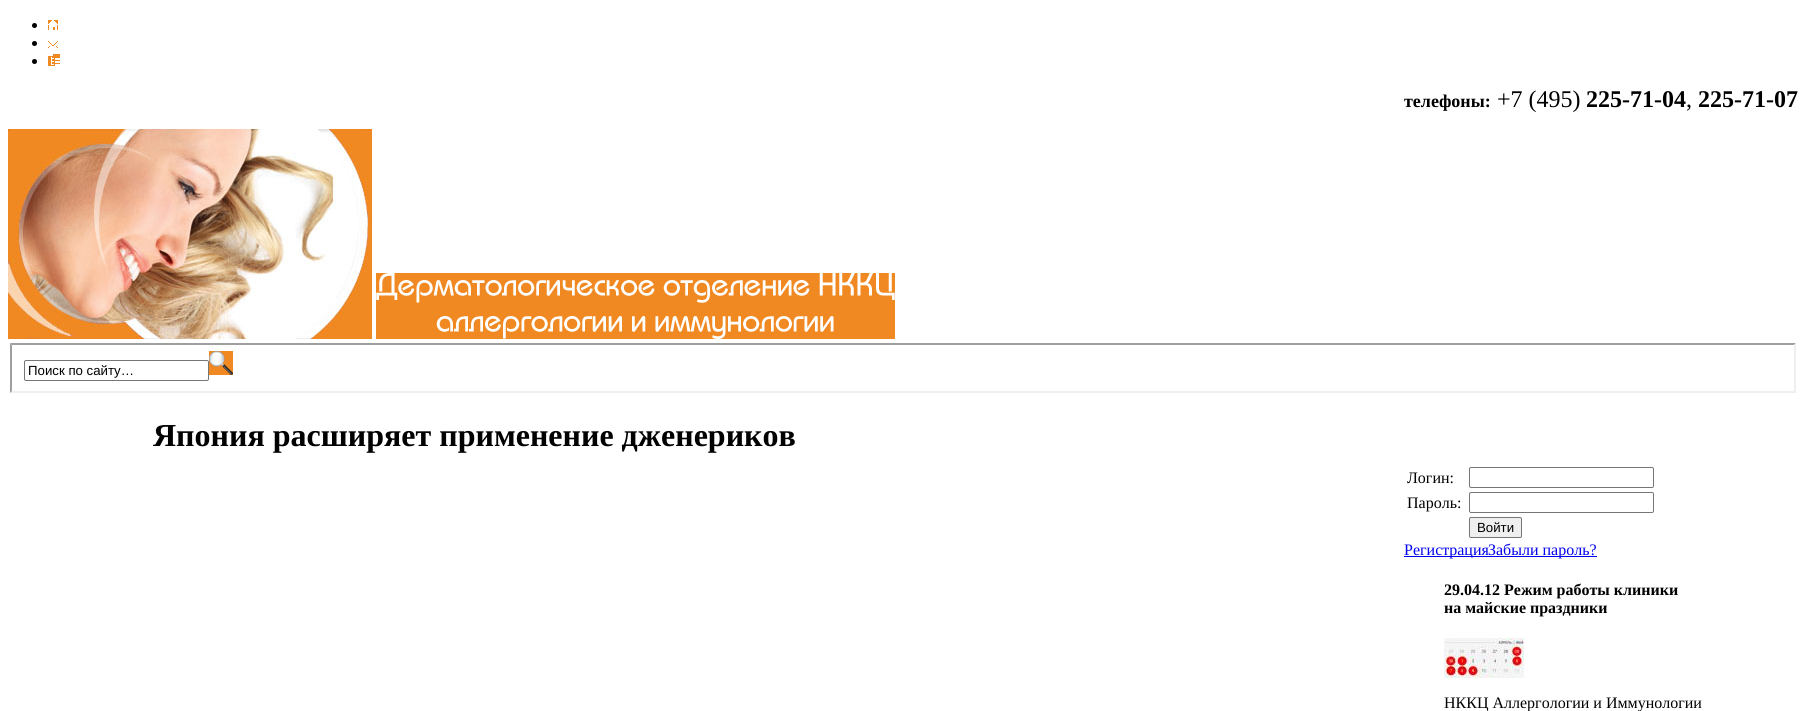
#include <cairo/cairo.h>
#include <math.h>
#include <stddef.h>


static void rounded_rect(cairo_t *cr, double x, double y, double w, double h, double r) {
  cairo_new_sub_path(cr);
  cairo_arc(cr, x + w - r, y + h - r, r, 0, M_PI / 2);
  cairo_arc(cr, x + r, y + h - r, r, M_PI / 2, M_PI);
  cairo_arc(cr, x + r, y + r, r, M_PI, 1.5 * M_PI);
  cairo_arc(cr, x + w - r, y + r, r, 1.5 * M_PI, 2 * M_PI);
  cairo_close_path(cr);
}

static void draw_image(cairo_t *cr, const char *path, double x, double y, double w, double h) {
  cairo_surface_t *image = cairo_image_surface_create_from_png(path);
  cairo_save(cr);
  cairo_set_source_surface(cr, image, x, y);
  cairo_rectangle(cr, x, y, w, h);
  cairo_fill(cr);
  cairo_restore(cr);
  cairo_surface_destroy(image);
}

static void draw(cairo_t *cr) {
  cairo_set_source_rgb(cr, 1, 1, 1);
  cairo_paint(cr);
  cairo_set_source_rgb(cr, 0, 0, 0);
  cairo_arc(cr, 34.5, 25.5, 2.5, 0, 2 * M_PI);
  cairo_fill(cr);
  draw_image(cr, "images/1.png", 48, 20, 10, 10);
  cairo_arc(cr, 34.5, 43.5, 2.5, 0, 2 * M_PI);
  cairo_fill(cr);
  draw_image(cr, "images/2.png", 48, 41, 10, 7);
  cairo_arc(cr, 34.5, 61.5, 2.5, 0, 2 * M_PI);
  cairo_fill(cr);
  draw_image(cr, "images/3.png", 48, 54, 12, 12);
  draw_image(cr, "images/4.png", 8, 129, 364, 210);
  draw_image(cr, "images/5.png", 376, 273, 519, 66);
  cairo_set_source_rgb(cr, 159 / 255.0, 159 / 255.0, 159 / 255.0);
  cairo_new_path(cr);
  cairo_move_to(cr, 10, 343);
  cairo_line_to(cr, 1796, 343);
  cairo_line_to(cr, 1794, 345);
  cairo_line_to(cr, 12, 345);
  cairo_close_path(cr);
  cairo_fill(cr);
  cairo_set_source_rgb(cr, 239 / 255.0, 239 / 255.0, 239 / 255.0);
  cairo_new_path(cr);
  cairo_move_to(cr, 1796, 343);
  cairo_line_to(cr, 1796, 393);
  cairo_line_to(cr, 1794, 391);
  cairo_line_to(cr, 1794, 345);
  cairo_close_path(cr);
  cairo_fill(cr);
  cairo_new_path(cr);
  cairo_move_to(cr, 1796, 393);
  cairo_line_to(cr, 10, 393);
  cairo_line_to(cr, 12, 391);
  cairo_line_to(cr, 1794, 391);
  cairo_close_path(cr);
  cairo_fill(cr);
  cairo_set_source_rgb(cr, 159 / 255.0, 159 / 255.0, 159 / 255.0);
  cairo_new_path(cr);
  cairo_move_to(cr, 10, 393);
  cairo_line_to(cr, 10, 343);
  cairo_line_to(cr, 12, 345);
  cairo_line_to(cr, 12, 391);
  cairo_close_path(cr);
  cairo_fill(cr);
  rounded_rect(cr, 24.5, 360.5, 184, 20, 1.5);
  cairo_set_source_rgb(cr, 118 / 255.0, 118 / 255.0, 118 / 255.0);
  cairo_set_line_width(cr, 1);
  cairo_stroke(cr);
  draw_image(cr, "images/6.png", 209, 351, 24, 24);
  rounded_rect(cr, 1469.5, 467.5, 184, 20, 1.5);
  cairo_stroke(cr);
  rounded_rect(cr, 1469.5, 492.5, 184, 20, 1.5);
  cairo_stroke(cr);
  cairo_set_source_rgb(cr, 239 / 255.0, 239 / 255.0, 239 / 255.0);
  rounded_rect(cr, 1469.5, 517.5, 52, 20, 1.5);
  cairo_fill_preserve(cr);
  cairo_set_source_rgb(cr, 118 / 255.0, 118 / 255.0, 118 / 255.0);
  cairo_stroke(cr);
  cairo_set_source_rgb(cr, 0, 0, 238 / 255.0);
  cairo_rectangle(cr, 1404, 556, 84, 1);
  cairo_fill(cr);
  cairo_rectangle(cr, 1488, 556, 109, 1);
  cairo_fill(cr);
  draw_image(cr, "images/7.png", 1444, 638, 80, 40);
  cairo_select_font_face(cr, "Liberation Serif", CAIRO_FONT_SLANT_NORMAL, CAIRO_FONT_WEIGHT_BOLD);
  cairo_set_font_size(cr, 18);
  cairo_set_source_rgb(cr, 0, 0, 0);
  cairo_move_to(cr, 1404, 107);
  cairo_show_text(cr, "телефоны:");
  cairo_select_font_face(cr, "Liberation Serif", CAIRO_FONT_SLANT_NORMAL, CAIRO_FONT_WEIGHT_NORMAL);
  cairo_set_font_size(cr, 24);
  cairo_move_to(cr, 1497, 107);
  cairo_show_text(cr, "+7 (495)");
  cairo_select_font_face(cr, "Liberation Serif", CAIRO_FONT_SLANT_NORMAL, CAIRO_FONT_WEIGHT_BOLD);
  cairo_move_to(cr, 1586, 107);
  cairo_show_text(cr, "225-71-04");
  cairo_select_font_face(cr, "Liberation Serif", CAIRO_FONT_SLANT_NORMAL, CAIRO_FONT_WEIGHT_NORMAL);
  cairo_move_to(cr, 1686, 107);
  cairo_show_text(cr, ",");
  cairo_select_font_face(cr, "Liberation Serif", CAIRO_FONT_SLANT_NORMAL, CAIRO_FONT_WEIGHT_BOLD);
  cairo_move_to(cr, 1698, 107);
  cairo_show_text(cr, "225-71-07");
  cairo_select_font_face(cr, "Liberation Sans", CAIRO_FONT_SLANT_NORMAL, CAIRO_FONT_WEIGHT_NORMAL);
  cairo_set_font_size(cr, 13.25);
  cairo_move_to(cr, 28, 375);
  cairo_show_text(cr, "Поиск по сайту…");
  cairo_select_font_face(cr, "Liberation Serif", CAIRO_FONT_SLANT_NORMAL, CAIRO_FONT_WEIGHT_BOLD);
  cairo_set_font_size(cr, 32);
  cairo_move_to(cr, 153, 446);
  cairo_show_text(cr, "Япония расширяет применение дженериков");
  cairo_select_font_face(cr, "Liberation Serif", CAIRO_FONT_SLANT_NORMAL, CAIRO_FONT_WEIGHT_NORMAL);
  cairo_set_font_size(cr, 16);
  cairo_move_to(cr, 1407, 483);
  cairo_show_text(cr, "Логин:");
  cairo_move_to(cr, 1407, 508);
  cairo_show_text(cr, "Пароль:");
  cairo_select_font_face(cr, "Liberation Sans", CAIRO_FONT_SLANT_NORMAL, CAIRO_FONT_WEIGHT_NORMAL);
  cairo_set_font_size(cr, 13.25);
  cairo_move_to(cr, 1477, 532);
  cairo_show_text(cr, "Войти");
  cairo_select_font_face(cr, "Liberation Serif", CAIRO_FONT_SLANT_NORMAL, CAIRO_FONT_WEIGHT_NORMAL);
  cairo_set_font_size(cr, 16);
  cairo_set_source_rgb(cr, 0, 0, 238 / 255.0);
  cairo_move_to(cr, 1404, 555);
  cairo_show_text(cr, "Регистрация");
  cairo_move_to(cr, 1488, 555);
  cairo_show_text(cr, "Забыли пароль?");
  cairo_select_font_face(cr, "Liberation Serif", CAIRO_FONT_SLANT_NORMAL, CAIRO_FONT_WEIGHT_BOLD);
  cairo_set_source_rgb(cr, 0, 0, 0);
  cairo_move_to(cr, 1444, 595);
  cairo_show_text(cr, "29.04.12 Режим работы клиники");
  cairo_move_to(cr, 1444, 613);
  cairo_show_text(cr, "на майские праздники");
  cairo_select_font_face(cr, "Liberation Serif", CAIRO_FONT_SLANT_NORMAL, CAIRO_FONT_WEIGHT_NORMAL);
  cairo_move_to(cr, 1444, 708);
  cairo_show_text(cr, "НККЦ Аллергологии и Иммунологии");
}

int main(void) {
  cairo_surface_t *surface = cairo_image_surface_create(CAIRO_FORMAT_RGB24, 1806, 711);
  cairo_t *cr = cairo_create(surface);
  cairo_font_options_t *options = cairo_font_options_create();
  cairo_font_options_set_hint_metrics(options, CAIRO_HINT_METRICS_OFF);
  cairo_font_options_set_hint_style(options, CAIRO_HINT_STYLE_NONE);
  cairo_set_font_options(cr, options);
  cairo_set_miter_limit(cr, 4);
  draw(cr);
  cairo_surface_write_to_png(surface, "out.png");
  cairo_font_options_destroy(options);
  cairo_destroy(cr);
  cairo_surface_destroy(surface);
  return 0;
}
